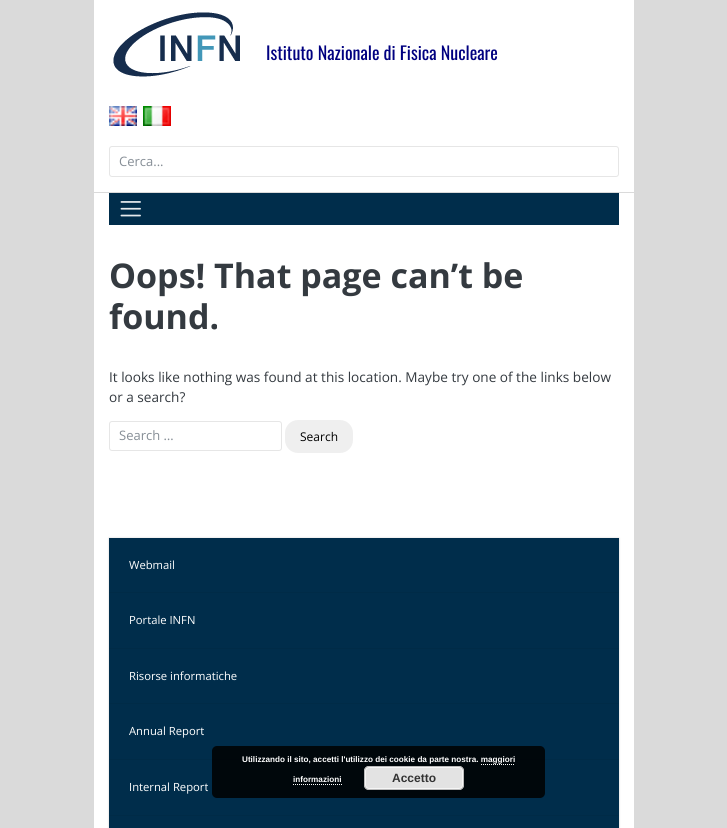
#include <cairo/cairo.h>
#include <math.h>
#include <stddef.h>


static void rounded_rect(cairo_t *cr, double x, double y, double w, double h, double r) {
  cairo_new_sub_path(cr);
  cairo_arc(cr, x + w - r, y + h - r, r, 0, M_PI / 2);
  cairo_arc(cr, x + r, y + h - r, r, M_PI / 2, M_PI);
  cairo_arc(cr, x + r, y + r, r, M_PI, 1.5 * M_PI);
  cairo_arc(cr, x + w - r, y + r, r, 1.5 * M_PI, 2 * M_PI);
  cairo_close_path(cr);
}

static void draw_shadow(cairo_t *cr, double x, double y, double w, double h, double r, double blur, double alpha) {
  cairo_push_group_with_content(cr, CAIRO_CONTENT_ALPHA);
  cairo_set_operator(cr, CAIRO_OPERATOR_SOURCE);
  for (int i = 15; i >= -15 && fmin(w, h) + blur * i / 3 > 0; i -= 2) {
    double e = blur * i / 6;
    cairo_set_source_rgba(cr, 0, 0, 0, alpha * erfc((i - 1) / 8.5) / 2);
    rounded_rect(cr, x - e, y - e, w + 2 * e, h + 2 * e, fmax(0, fmin(r + e + blur * .6, fmin(w, h) / 2 + e)));
    cairo_fill(cr);
  }
  cairo_pattern_t *soft = cairo_pop_group(cr);
  cairo_mask(cr, soft);
  cairo_pattern_destroy(soft);
}

static void draw_image(cairo_t *cr, const char *path, double x, double y, double w, double h) {
  cairo_surface_t *image = cairo_image_surface_create_from_png(path);
  cairo_save(cr);
  cairo_set_source_surface(cr, image, x, y);
  cairo_rectangle(cr, x, y, w, h);
  cairo_fill(cr);
  cairo_restore(cr);
  cairo_surface_destroy(image);
}

static void draw(cairo_t *cr) {
  cairo_set_source_rgb(cr, 218 / 255.0, 218 / 255.0, 218 / 255.0);
  cairo_paint(cr);
  cairo_set_source_rgb(cr, 1, 1, 1);
  cairo_rectangle(cr, 94, 0, 540, 192);
  cairo_fill(cr);
  draw_image(cr, "images/1.png", 113, 12, 127, 65);
  draw_image(cr, "images/2.png", 109, 106, 28, 20);
  draw_image(cr, "images/3.png", 143, 106, 28, 20);
  rounded_rect(cr, 109.5, 146.5, 509, 30, 2.5);
  cairo_set_source_rgb(cr, 230 / 255.0, 230 / 255.0, 230 / 255.0);
  cairo_set_line_width(cr, 1);
  cairo_stroke(cr);
  cairo_set_source_rgb(cr, 1, 1, 1);
  cairo_rectangle(cr, 94, 193, 540, 635);
  cairo_fill(cr);
  cairo_set_source_rgb(cr, 0, 45 / 255.0, 75 / 255.0);
  cairo_rectangle(cr, 109, 193, 510, 32);
  cairo_fill(cr);
  draw_image(cr, "images/4.png", 120, 201, 21, 16);
  rounded_rect(cr, 109.5, 421.5, 172, 29, 2.5);
  cairo_set_source_rgb(cr, 230 / 255.0, 230 / 255.0, 230 / 255.0);
  cairo_stroke(cr);
  cairo_set_source_rgb(cr, 239 / 255.0, 239 / 255.0, 239 / 255.0);
  rounded_rect(cr, 285, 420, 68, 33, 13);
  cairo_fill(cr);
  cairo_set_source_rgb(cr, 0, 0, 0);
  draw_shadow(cr, 109, 538, 510, 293, 0, 1, 0.17);
  cairo_set_source_rgb(cr, 0, 45 / 255.0, 75 / 255.0);
  cairo_rectangle(cr, 109, 538, 510, 290);
  cairo_fill(cr);
  cairo_set_source_rgb(cr, 0, 43 / 255.0, 71 / 255.0);
  cairo_rectangle(cr, 109, 592, 510, 1);
  cairo_fill(cr);
  cairo_rectangle(cr, 109, 648, 510, 1);
  cairo_fill(cr);
  cairo_rectangle(cr, 109, 703, 510, 1);
  cairo_fill(cr);
  cairo_rectangle(cr, 109, 759, 510, 1);
  cairo_fill(cr);
  cairo_rectangle(cr, 109, 815, 510, 1);
  cairo_fill(cr);
  cairo_set_source_rgba(cr, 0, 0, 0, 0.85);
  rounded_rect(cr, 212, 746, 333, 52, 5);
  cairo_fill(cr);
  cairo_new_path(cr);
  cairo_move_to(cr, 481, 764.5);
  cairo_line_to(cr, 515, 764.5);
  cairo_set_source_rgb(cr, 1, 1, 1);
  cairo_set_dash(cr, (double[]){1, 1}, 2, 0);
  cairo_stroke(cr);
  cairo_new_path(cr);
  cairo_move_to(cr, 293, 784.5);
  cairo_line_to(cr, 342, 784.5);
  cairo_stroke(cr);
  cairo_set_source_rgb(cr, 227 / 255.0, 227 / 255.0, 227 / 255.0);
  rounded_rect(cr, 364, 766, 100, 24, 5);
  cairo_fill(cr);
  rounded_rect(cr, 365.5, 767.5, 97, 21, 3.5);
  cairo_set_source_rgb(cr, 246 / 255.0, 246 / 255.0, 246 / 255.0);
  cairo_set_dash(cr, NULL, 0, 0);
  cairo_stroke(cr);
  rounded_rect(cr, 364.5, 766.5, 99, 23, 4.5);
  cairo_set_source_rgb(cr, 187 / 255.0, 187 / 255.0, 187 / 255.0);
  cairo_stroke(cr);
  cairo_select_font_face(cr, "Oswald", CAIRO_FONT_SLANT_NORMAL, CAIRO_FONT_WEIGHT_NORMAL);
  cairo_set_font_size(cr, 18);
  cairo_set_source_rgb(cr, 0, 0, 128 / 255.0);
  cairo_move_to(cr, 266, 60);
  cairo_show_text(cr, "Istituto Nazionale di Fisica Nucleare");
  cairo_select_font_face(cr, "Open Sans", CAIRO_FONT_SLANT_NORMAL, CAIRO_FONT_WEIGHT_NORMAL);
  cairo_set_font_size(cr, 13);
  cairo_set_source_rgb(cr, 134 / 255.0, 142 / 255.0, 150 / 255.0);
  cairo_move_to(cr, 119, 166);
  cairo_show_text(cr, "Cerca...");
  cairo_select_font_face(cr, "Open Sans", CAIRO_FONT_SLANT_NORMAL, CAIRO_FONT_WEIGHT_BOLD);
  cairo_set_font_size(cr, 34);
  cairo_set_source_rgb(cr, 52 / 255.0, 58 / 255.0, 64 / 255.0);
  cairo_move_to(cr, 109, 288);
  cairo_show_text(cr, "Oops! That page can’t be");
  cairo_move_to(cr, 109, 329);
  cairo_show_text(cr, "found.");
  cairo_select_font_face(cr, "Open Sans", CAIRO_FONT_SLANT_NORMAL, CAIRO_FONT_WEIGHT_NORMAL);
  cairo_set_font_size(cr, 13.6);
  cairo_move_to(cr, 109, 382);
  cairo_show_text(cr, "It looks like nothing was found at this location. Maybe try one of the links below");
  cairo_move_to(cr, 109, 402);
  cairo_show_text(cr, "or a search?");
  cairo_set_font_size(cr, 13);
  cairo_set_source_rgb(cr, 134 / 255.0, 142 / 255.0, 150 / 255.0);
  cairo_move_to(cr, 119, 440);
  cairo_show_text(cr, "Search …");
  cairo_set_font_size(cr, 12);
  cairo_set_source_rgb(cr, 0, 0, 0);
  cairo_move_to(cr, 300, 441);
  cairo_show_text(cr, "Search");
  cairo_set_font_size(cr, 11.25);
  cairo_set_source_rgb(cr, 1, 1, 1);
  cairo_move_to(cr, 129, 569);
  cairo_show_text(cr, "Webmail");
  cairo_move_to(cr, 129, 624);
  cairo_show_text(cr, "Portale INFN");
  cairo_move_to(cr, 129, 680);
  cairo_show_text(cr, "Risorse informatiche");
  cairo_move_to(cr, 129, 735);
  cairo_show_text(cr, "Annual Report");
  cairo_move_to(cr, 129, 791);
  cairo_show_text(cr, "Internal Report");
  cairo_select_font_face(cr, "Liberation Sans", CAIRO_FONT_SLANT_NORMAL, CAIRO_FONT_WEIGHT_BOLD);
  cairo_set_font_size(cr, 8.15);
  cairo_move_to(cr, 242, 762);
  cairo_show_text(cr, "Utilizzando il sito, accetti l'utilizzo dei cookie da parte nostra. maggiori");
  cairo_move_to(cr, 293, 782);
  cairo_show_text(cr, "informazioni");
  cairo_set_font_size(cr, 12);
  cairo_set_source_rgb(cr, 51 / 255.0, 51 / 255.0, 51 / 255.0);
  cairo_move_to(cr, 392, 782);
  cairo_show_text(cr, "Accetto");
}

int main(void) {
  cairo_surface_t *surface = cairo_image_surface_create(CAIRO_FORMAT_RGB24, 727, 828);
  cairo_t *cr = cairo_create(surface);
  cairo_font_options_t *options = cairo_font_options_create();
  cairo_font_options_set_hint_metrics(options, CAIRO_HINT_METRICS_OFF);
  cairo_font_options_set_hint_style(options, CAIRO_HINT_STYLE_NONE);
  cairo_set_font_options(cr, options);
  cairo_set_miter_limit(cr, 4);
  draw(cr);
  cairo_surface_write_to_png(surface, "out.png");
  cairo_font_options_destroy(options);
  cairo_destroy(cr);
  cairo_surface_destroy(surface);
  return 0;
}
